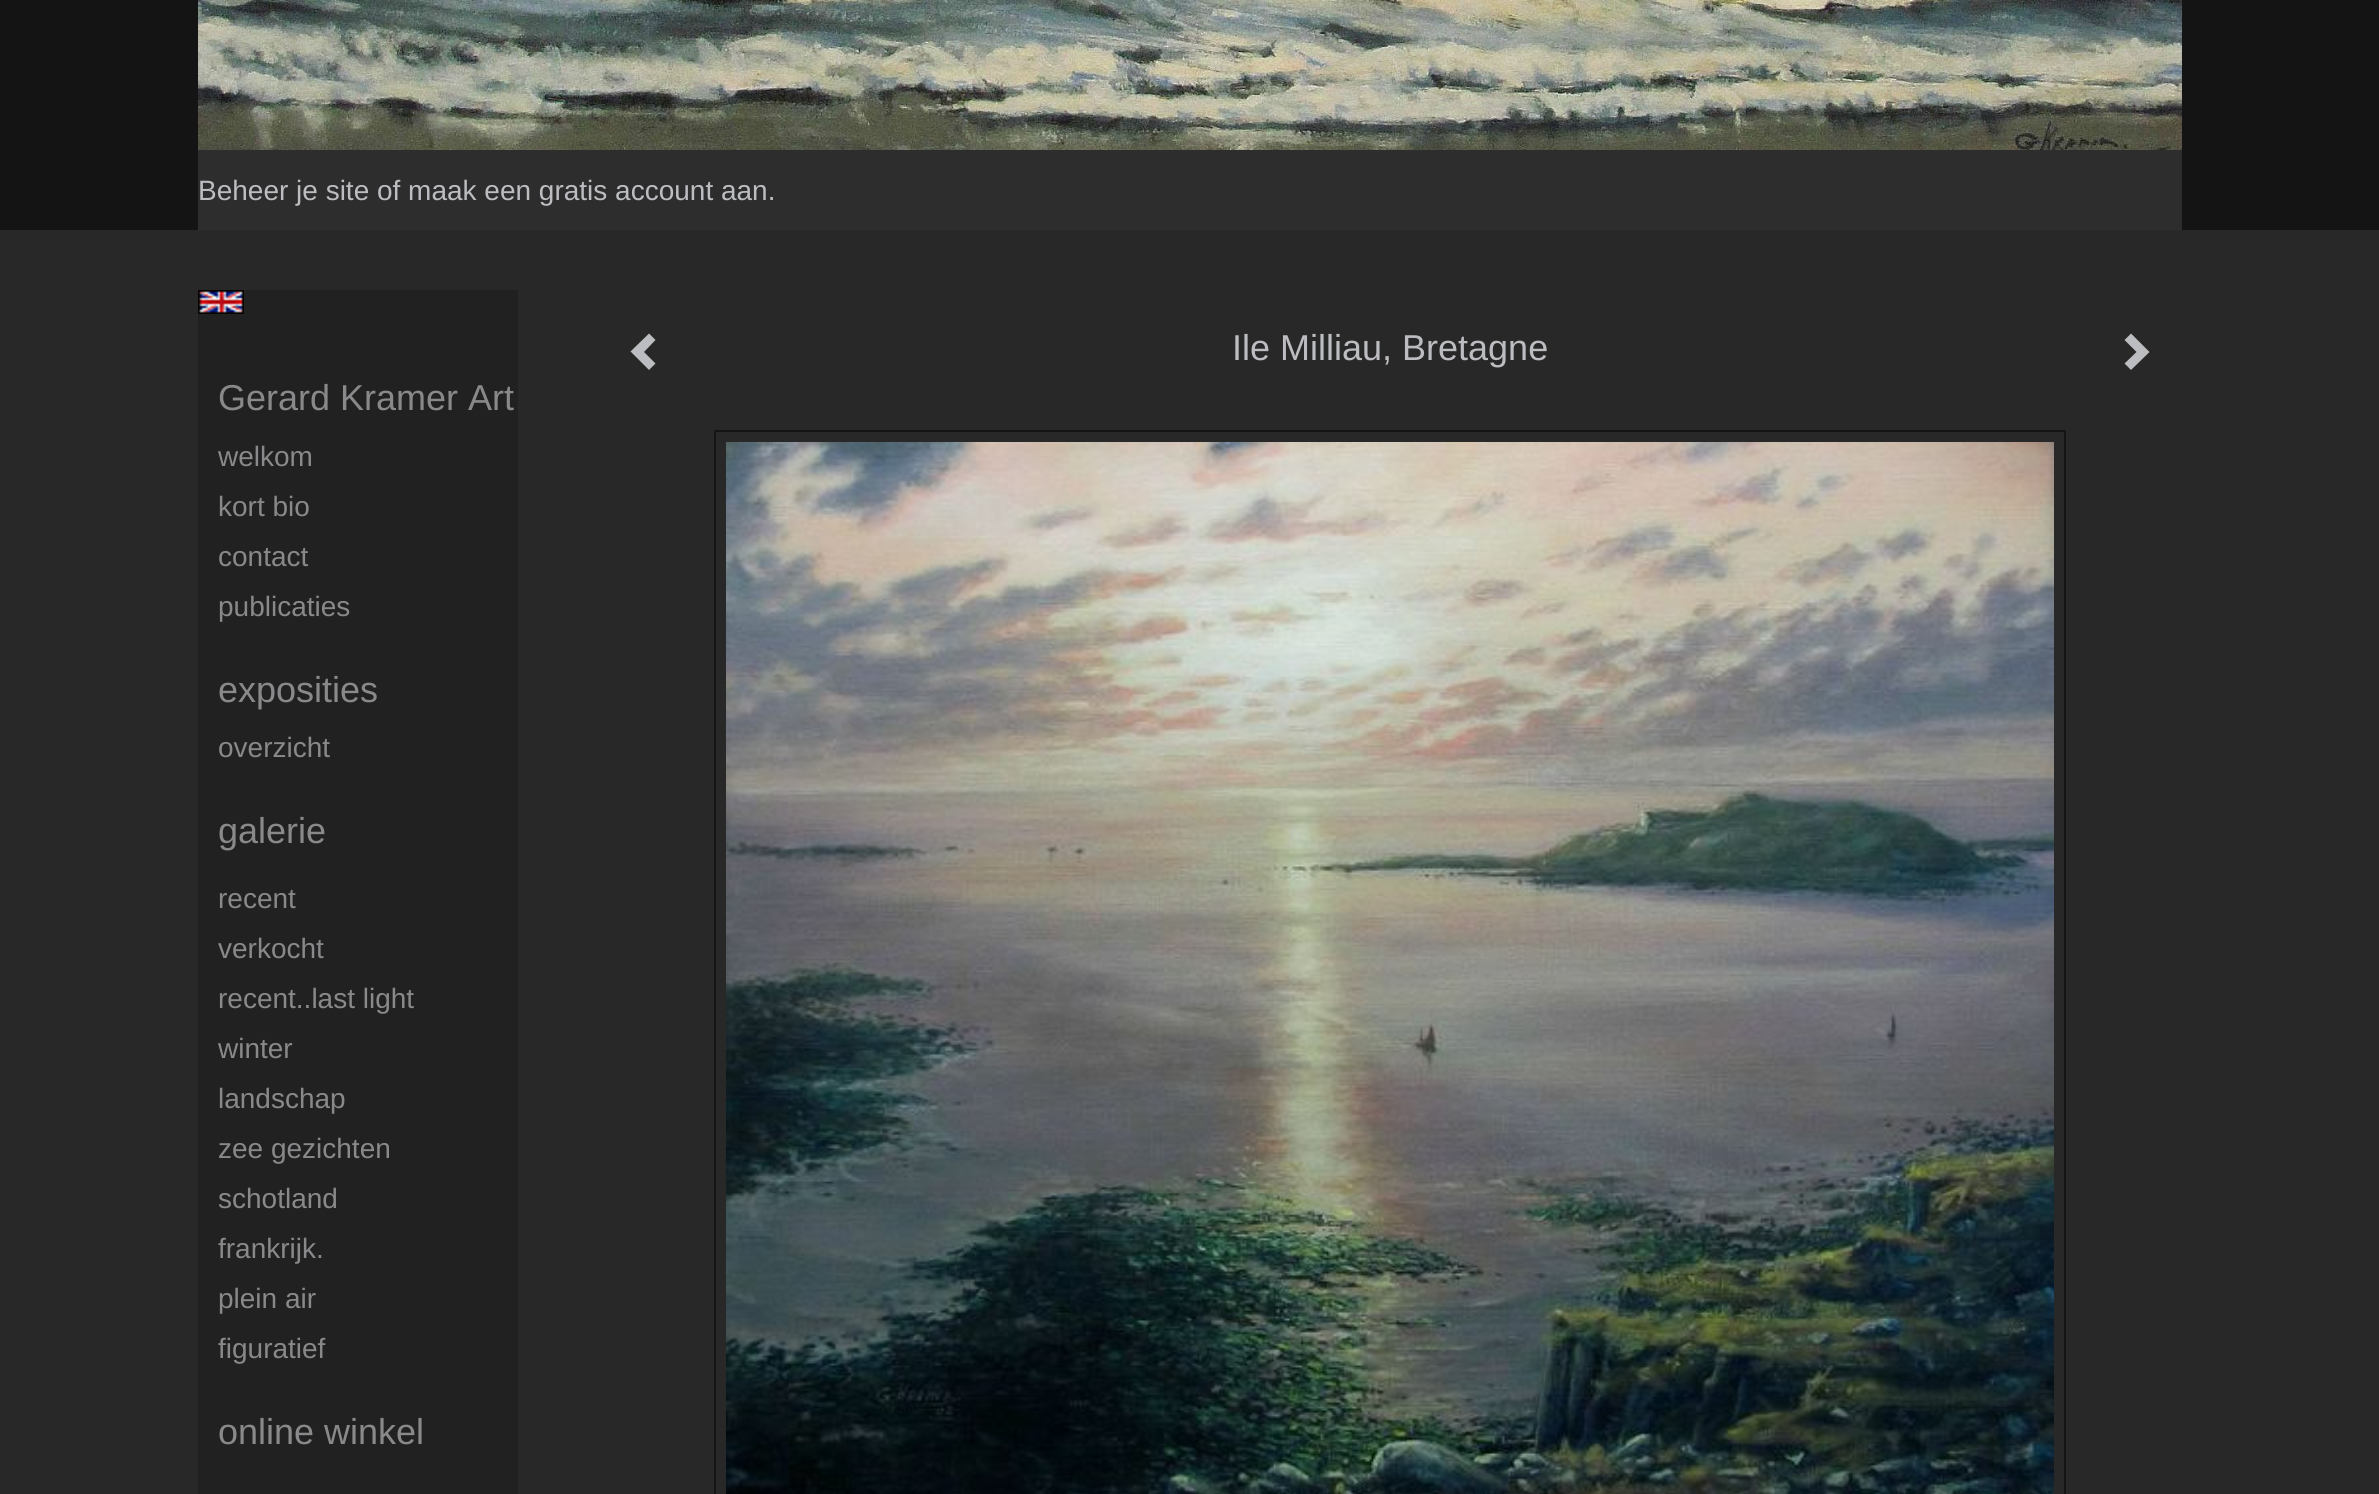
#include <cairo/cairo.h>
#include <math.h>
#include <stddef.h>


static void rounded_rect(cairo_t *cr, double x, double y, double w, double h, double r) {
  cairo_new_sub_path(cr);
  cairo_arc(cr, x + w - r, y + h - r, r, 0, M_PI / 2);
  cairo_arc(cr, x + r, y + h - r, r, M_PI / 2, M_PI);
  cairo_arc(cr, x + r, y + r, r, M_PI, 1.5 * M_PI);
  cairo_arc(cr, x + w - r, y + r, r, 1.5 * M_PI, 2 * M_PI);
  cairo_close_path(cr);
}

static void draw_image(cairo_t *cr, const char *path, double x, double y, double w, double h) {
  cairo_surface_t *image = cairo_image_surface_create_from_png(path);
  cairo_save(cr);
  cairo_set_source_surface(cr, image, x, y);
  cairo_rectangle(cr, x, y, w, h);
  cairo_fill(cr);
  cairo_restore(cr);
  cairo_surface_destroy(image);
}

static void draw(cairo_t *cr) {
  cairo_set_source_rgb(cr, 40 / 255.0, 40 / 255.0, 40 / 255.0);
  cairo_paint(cr);
  cairo_set_source_rgb(cr, 20 / 255.0, 20 / 255.0, 20 / 255.0);
  cairo_rectangle(cr, 0, 0, 2379, 230);
  cairo_fill(cr);
  draw_image(cr, "images/1.png", 198, 0, 1984, 150);
  cairo_set_source_rgb(cr, 45 / 255.0, 45 / 255.0, 45 / 255.0);
  cairo_rectangle(cr, 198, 150, 1984, 80);
  cairo_fill(cr);
  cairo_set_source_rgb(cr, 188 / 255.0, 189 / 255.0, 192 / 255.0);
  cairo_new_path(cr);
  cairo_move_to(cr, 655.5, 340);
  cairo_line_to(cr, 644, 352);
  cairo_line_to(cr, 655.5, 363.5);
  cairo_line_to(cr, 649, 370);
  cairo_line_to(cr, 630.5, 351.5);
  cairo_line_to(cr, 649, 333.5);
  cairo_close_path(cr);
  cairo_fill(cr);
  cairo_new_path(cr);
  cairo_move_to(cr, 2149.5, 352);
  cairo_line_to(cr, 2131, 370);
  cairo_line_to(cr, 2124.5, 363.5);
  cairo_line_to(cr, 2136.5, 352);
  cairo_line_to(cr, 2124.5, 340);
  cairo_line_to(cr, 2131, 333.5);
  cairo_close_path(cr);
  cairo_fill(cr);
  rounded_rect(cr, 715, 431, 1350, 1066, 1);
  cairo_set_source_rgb(cr, 20 / 255.0, 20 / 255.0, 20 / 255.0);
  cairo_stroke(cr);
  draw_image(cr, "images/2.png", 726, 442, 1328, 1052);
  cairo_set_source_rgb(cr, 33 / 255.0, 33 / 255.0, 33 / 255.0);
  cairo_rectangle(cr, 198, 290, 320, 1204);
  cairo_fill(cr);
  draw_image(cr, "images/3.png", 198, 290, 46, 24);
  cairo_select_font_face(cr, "Liberation Sans", CAIRO_FONT_SLANT_NORMAL, CAIRO_FONT_WEIGHT_NORMAL);
  cairo_set_font_size(cr, 28);
  cairo_set_source_rgb(cr, 188 / 255.0, 189 / 255.0, 192 / 255.0);
  cairo_move_to(cr, 198, 200);
  cairo_show_text(cr, "Beheer je site of maak een gratis account aan.");
  cairo_set_font_size(cr, 36);
  cairo_move_to(cr, 1232, 360);
  cairo_show_text(cr, "Ile Milliau, Bretagne");
  cairo_set_source_rgb(cr, 137 / 255.0, 137 / 255.0, 139 / 255.0);
  cairo_move_to(cr, 218, 410);
  cairo_show_text(cr, "Gerard Kramer Art");
  cairo_set_font_size(cr, 28);
  cairo_move_to(cr, 218, 466);
  cairo_show_text(cr, "welkom");
  cairo_move_to(cr, 218, 516);
  cairo_show_text(cr, "kort bio");
  cairo_move_to(cr, 218, 566);
  cairo_show_text(cr, "contact");
  cairo_move_to(cr, 218, 616);
  cairo_show_text(cr, "publicaties");
  cairo_set_font_size(cr, 36);
  cairo_move_to(cr, 218, 702);
  cairo_show_text(cr, "exposities");
  cairo_set_font_size(cr, 28);
  cairo_move_to(cr, 218, 757);
  cairo_show_text(cr, "overzicht");
  cairo_set_font_size(cr, 36);
  cairo_move_to(cr, 218, 843);
  cairo_show_text(cr, "galerie");
  cairo_set_font_size(cr, 28);
  cairo_move_to(cr, 218, 908);
  cairo_show_text(cr, "recent");
  cairo_move_to(cr, 218, 958);
  cairo_show_text(cr, "verkocht");
  cairo_move_to(cr, 218, 1008);
  cairo_show_text(cr, "recent..last light");
  cairo_move_to(cr, 218, 1058);
  cairo_show_text(cr, "winter");
  cairo_move_to(cr, 218, 1108);
  cairo_show_text(cr, "landschap");
  cairo_move_to(cr, 218, 1158);
  cairo_show_text(cr, "zee gezichten");
  cairo_move_to(cr, 218, 1208);
  cairo_show_text(cr, "schotland");
  cairo_move_to(cr, 218, 1258);
  cairo_show_text(cr, "frankrijk.");
  cairo_move_to(cr, 218, 1308);
  cairo_show_text(cr, "plein air");
  cairo_move_to(cr, 218, 1358);
  cairo_show_text(cr, "figuratief");
  cairo_set_font_size(cr, 36);
  cairo_move_to(cr, 218, 1444);
  cairo_show_text(cr, "online winkel");
}

int main(void) {
  cairo_surface_t *surface = cairo_image_surface_create(CAIRO_FORMAT_RGB24, 2379, 1494);
  cairo_t *cr = cairo_create(surface);
  cairo_font_options_t *options = cairo_font_options_create();
  cairo_font_options_set_hint_metrics(options, CAIRO_HINT_METRICS_OFF);
  cairo_font_options_set_hint_style(options, CAIRO_HINT_STYLE_NONE);
  cairo_set_font_options(cr, options);
  cairo_set_miter_limit(cr, 4);
  draw(cr);
  cairo_surface_write_to_png(surface, "out.png");
  cairo_font_options_destroy(options);
  cairo_destroy(cr);
  cairo_surface_destroy(surface);
  return 0;
}
